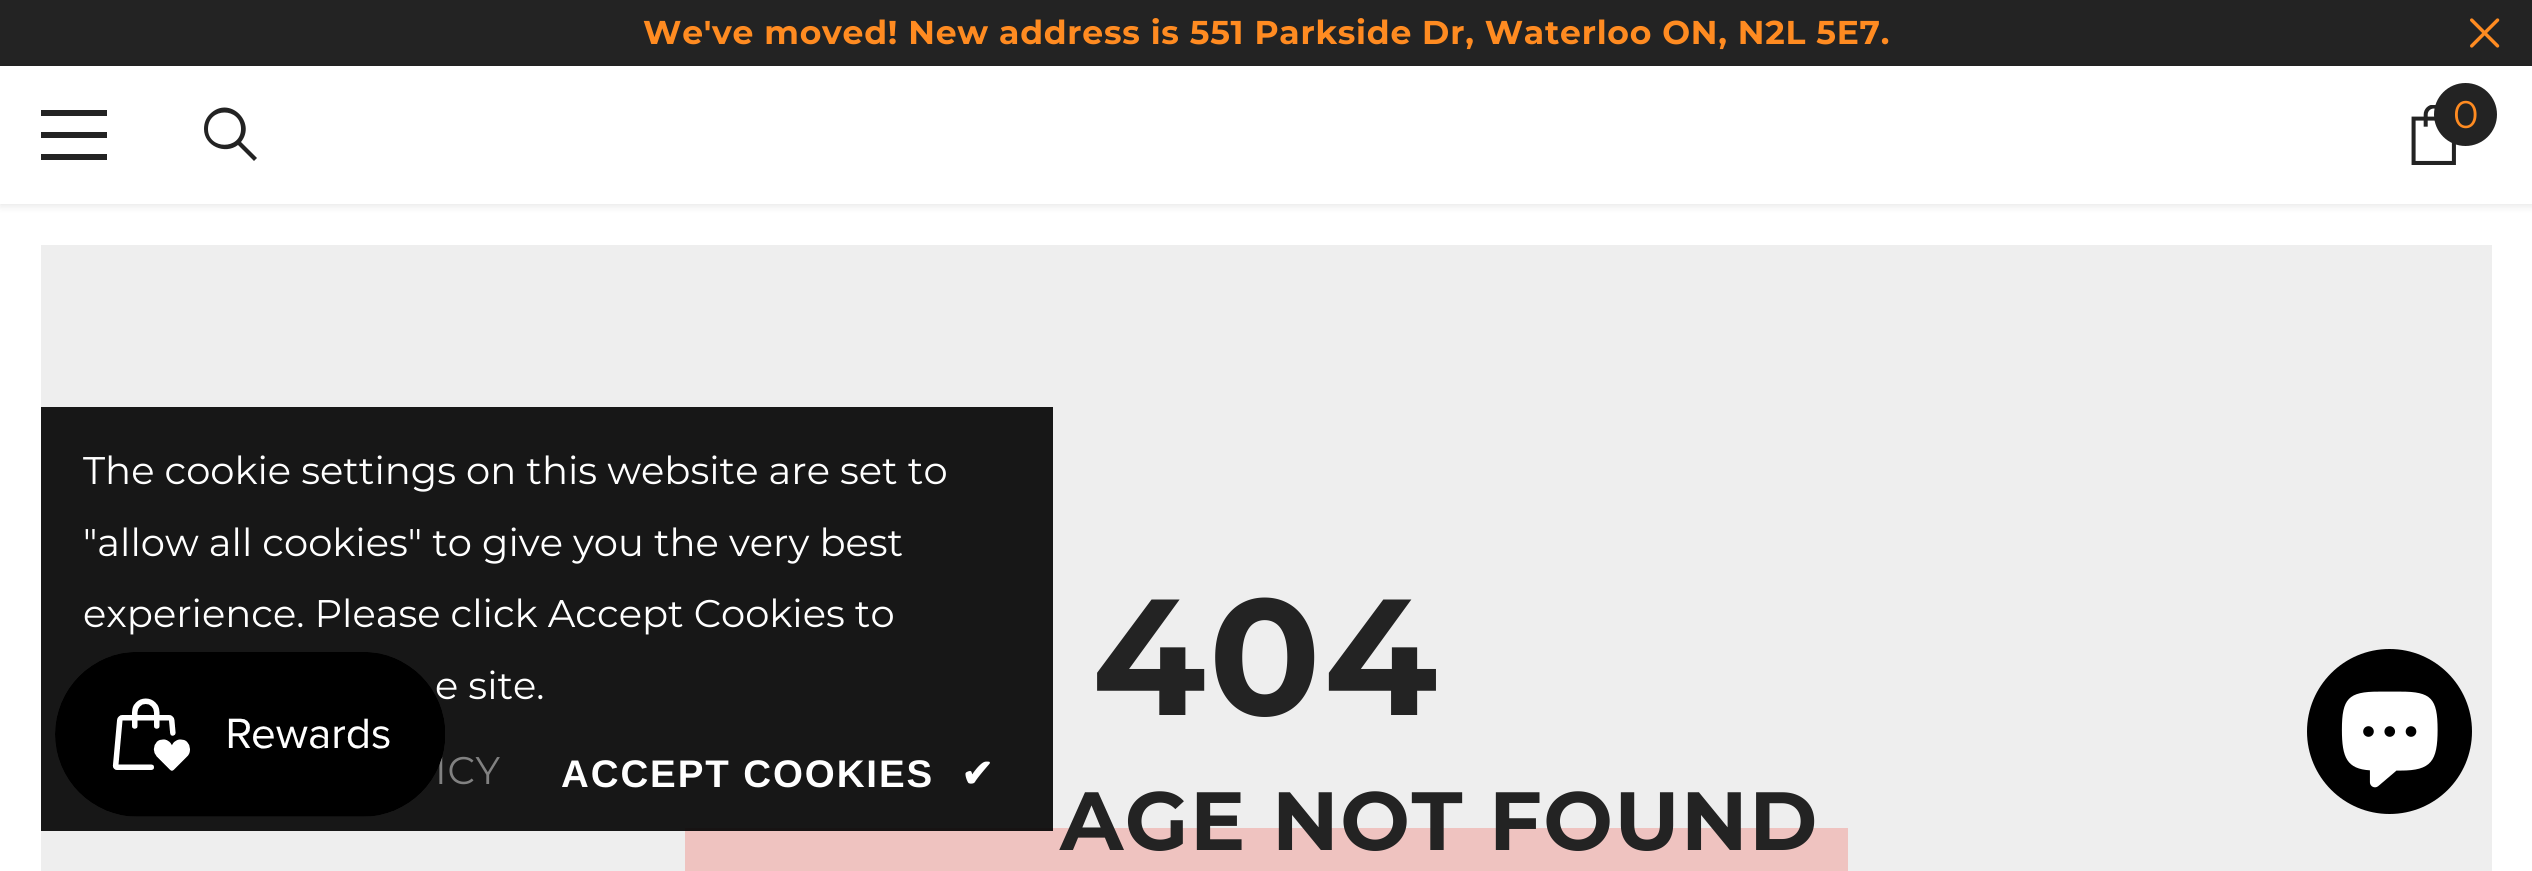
#include <cairo/cairo.h>
#include <math.h>
#include <stddef.h>


static void draw_spaced(cairo_t *cr, double x, double y, const char *s, double letter, double word) {
  cairo_move_to(cr, x, y);
  while (*s) {
    char ch[5] = {0};
    int n = 0;
    do ch[n++] = *s++; while ((*s & 0xC0) == 0x80);
    cairo_show_text(cr, ch);
    cairo_rel_move_to(cr, letter + word * (*ch == ' '), 0);
  }
}

static void rounded_rect(cairo_t *cr, double x, double y, double w, double h, double r) {
  cairo_new_sub_path(cr);
  cairo_arc(cr, x + w - r, y + h - r, r, 0, M_PI / 2);
  cairo_arc(cr, x + r, y + h - r, r, M_PI / 2, M_PI);
  cairo_arc(cr, x + r, y + r, r, M_PI, 1.5 * M_PI);
  cairo_arc(cr, x + w - r, y + r, r, 1.5 * M_PI, 2 * M_PI);
  cairo_close_path(cr);
}

static void draw_shadow(cairo_t *cr, double x, double y, double w, double h, double r, double blur, double alpha) {
  cairo_push_group_with_content(cr, CAIRO_CONTENT_ALPHA);
  cairo_set_operator(cr, CAIRO_OPERATOR_SOURCE);
  for (int i = 15; i >= -15 && fmin(w, h) + blur * i / 3 > 0; i -= 2) {
    double e = blur * i / 6;
    cairo_set_source_rgba(cr, 0, 0, 0, alpha * erfc((i - 1) / 8.5) / 2);
    rounded_rect(cr, x - e, y - e, w + 2 * e, h + 2 * e, fmax(0, fmin(r + e + blur * .6, fmin(w, h) / 2 + e)));
    cairo_fill(cr);
  }
  cairo_pattern_t *soft = cairo_pop_group(cr);
  cairo_mask(cr, soft);
  cairo_pattern_destroy(soft);
}

static void draw_image(cairo_t *cr, const char *path, double x, double y, double w, double h) {
  cairo_surface_t *image = cairo_image_surface_create_from_png(path);
  cairo_save(cr);
  cairo_set_source_surface(cr, image, x, y);
  cairo_rectangle(cr, x, y, w, h);
  cairo_fill(cr);
  cairo_restore(cr);
  cairo_surface_destroy(image);
}

static void draw(cairo_t *cr) {
  cairo_set_source_rgb(cr, 1, 1, 1);
  cairo_paint(cr);
  cairo_set_source_rgb(cr, 238 / 255.0, 238 / 255.0, 238 / 255.0);
  cairo_rectangle(cr, 41, 245, 2451, 626);
  cairo_fill(cr);
  cairo_set_source_rgb(cr, 239 / 255.0, 195 / 255.0, 192 / 255.0);
  cairo_rectangle(cr, 685, 828, 1163, 43);
  cairo_fill(cr);
  cairo_set_source_rgba(cr, 0, 0, 0, 0.9);
  cairo_rectangle(cr, 41, 407, 1012, 424);
  cairo_fill(cr);
  cairo_set_source_rgb(cr, 35 / 255.0, 35 / 255.0, 35 / 255.0);
  cairo_rectangle(cr, 0, 0, 2532, 66);
  cairo_fill(cr);
  draw_image(cr, "images/1.png", 2470, 18, 30, 30);
  cairo_set_source_rgb(cr, 0, 0, 0);
  draw_shadow(cr, 0, 69, 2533, 137, 0, 4, 0.1);
  cairo_set_source_rgb(cr, 1, 1, 1);
  cairo_rectangle(cr, 0, 66, 2532, 138);
  cairo_fill(cr);
  cairo_set_source_rgb(cr, 35 / 255.0, 35 / 255.0, 35 / 255.0);
  cairo_rectangle(cr, 41, 132, 66, 6);
  cairo_fill(cr);
  cairo_rectangle(cr, 41, 110, 66, 6);
  cairo_fill(cr);
  cairo_rectangle(cr, 41, 154, 66, 6);
  cairo_fill(cr);
  cairo_new_path(cr);
  cairo_move_to(cr, 204, 129);
  cairo_curve_to(cr, 204, 146, 225, 155, 238, 145);
  cairo_line_to(cr, 254, 161);
  cairo_line_to(cr, 257, 158);
  cairo_line_to(cr, 241, 142);
  cairo_curve_to(cr, 257, 122, 229, 95, 210, 114);
  cairo_curve_to(cr, 206, 118, 204, 123, 204, 129);
  cairo_close_path(cr);
  cairo_move_to(cr, 208, 129);
  cairo_curve_to(cr, 208, 107, 241, 107, 241, 129);
  cairo_curve_to(cr, 241, 150, 208, 150, 208, 129);
  cairo_close_path(cr);
  cairo_fill(cr);
  draw_image(cr, "images/2.png", 2411, 105, 45, 60);
  cairo_arc(cr, 2465.5, 114.5, 31.5, 0, 2 * M_PI);
  cairo_fill(cr);
  cairo_set_source_rgb(cr, 0, 0, 0);
  cairo_arc(cr, 2389.5, 731.5, 82.5, 0, 2 * M_PI);
  cairo_fill(cr);
  draw_image(cr, "images/4.png", 2341, 691, 97, 97);
  cairo_select_font_face(cr, "Montserrat Thin", CAIRO_FONT_SLANT_NORMAL, CAIRO_FONT_WEIGHT_NORMAL);
  cairo_set_font_size(cr, 38.5);
  cairo_set_source_rgb(cr, 1, 1, 1);
  cairo_move_to(cr, 83, 484);
  cairo_show_text(cr, "The cookie settings on this website are set to");
  cairo_move_to(cr, 83, 556);
  cairo_show_text(cr, "\"allow all cookies\" to give you the very best");
  cairo_move_to(cr, 83, 627);
  cairo_show_text(cr, "experience. Please click Accept Cookies to");
  cairo_move_to(cr, 435, 699);
  cairo_show_text(cr, "e site.");
  cairo_set_source_rgb(cr, 129 / 255.0, 129 / 255.0, 129 / 255.0);
  draw_spaced(cr, 435, 784, "ICY", 0.77, 0);
  cairo_select_font_face(cr, "Liberation Sans", CAIRO_FONT_SLANT_NORMAL, CAIRO_FONT_WEIGHT_BOLD);
  cairo_set_source_rgb(cr, 1, 1, 1);
  draw_spaced(cr, 561, 787, "ACCEPT COOKIES", 1.9, 0);
  cairo_select_font_face(cr, "DejaVu Sans", CAIRO_FONT_SLANT_NORMAL, CAIRO_FONT_WEIGHT_BOLD);
  draw_spaced(cr, 961, 787, "✔", 1.9, 0);
  cairo_select_font_face(cr, "Montserrat", CAIRO_FONT_SLANT_NORMAL, CAIRO_FONT_WEIGHT_BOLD);
  cairo_set_font_size(cr, 33);
  cairo_set_source_rgb(cr, 1, 139 / 255.0, 33 / 255.0);
  draw_spaced(cr, 643, 44, "We've moved! New address is 551 Parkside Dr, Waterloo ON, N2L 5E7.", 0.77, 0);
  cairo_select_font_face(cr, "Montserrat Thin", CAIRO_FONT_SLANT_NORMAL, CAIRO_FONT_WEIGHT_NORMAL);
  cairo_set_font_size(cr, 38.5);
  cairo_move_to(cr, 2453, 128);
  cairo_show_text(cr, "0");
  cairo_select_font_face(cr, "Montserrat", CAIRO_FONT_SLANT_NORMAL, CAIRO_FONT_WEIGHT_BOLD);
  cairo_set_font_size(cr, 165);
  cairo_set_source_rgb(cr, 35 / 255.0, 35 / 255.0, 35 / 255.0);
  draw_spaced(cr, 1092, 715, "404", 3, 0);
  cairo_set_font_size(cr, 82.5);
  draw_spaced(cr, 1060, 850, "AGE NOT FOUND", 1.6, 0);
  draw_image(cr, "images/3.png", 55, 652, 390, 165);
}

int main(void) {
  cairo_surface_t *surface = cairo_image_surface_create(CAIRO_FORMAT_RGB24, 2532, 871);
  cairo_t *cr = cairo_create(surface);
  cairo_font_options_t *options = cairo_font_options_create();
  cairo_font_options_set_hint_metrics(options, CAIRO_HINT_METRICS_OFF);
  cairo_font_options_set_hint_style(options, CAIRO_HINT_STYLE_NONE);
  cairo_set_font_options(cr, options);
  cairo_set_miter_limit(cr, 4);
  draw(cr);
  cairo_surface_write_to_png(surface, "out.png");
  cairo_font_options_destroy(options);
  cairo_destroy(cr);
  cairo_surface_destroy(surface);
  return 0;
}
